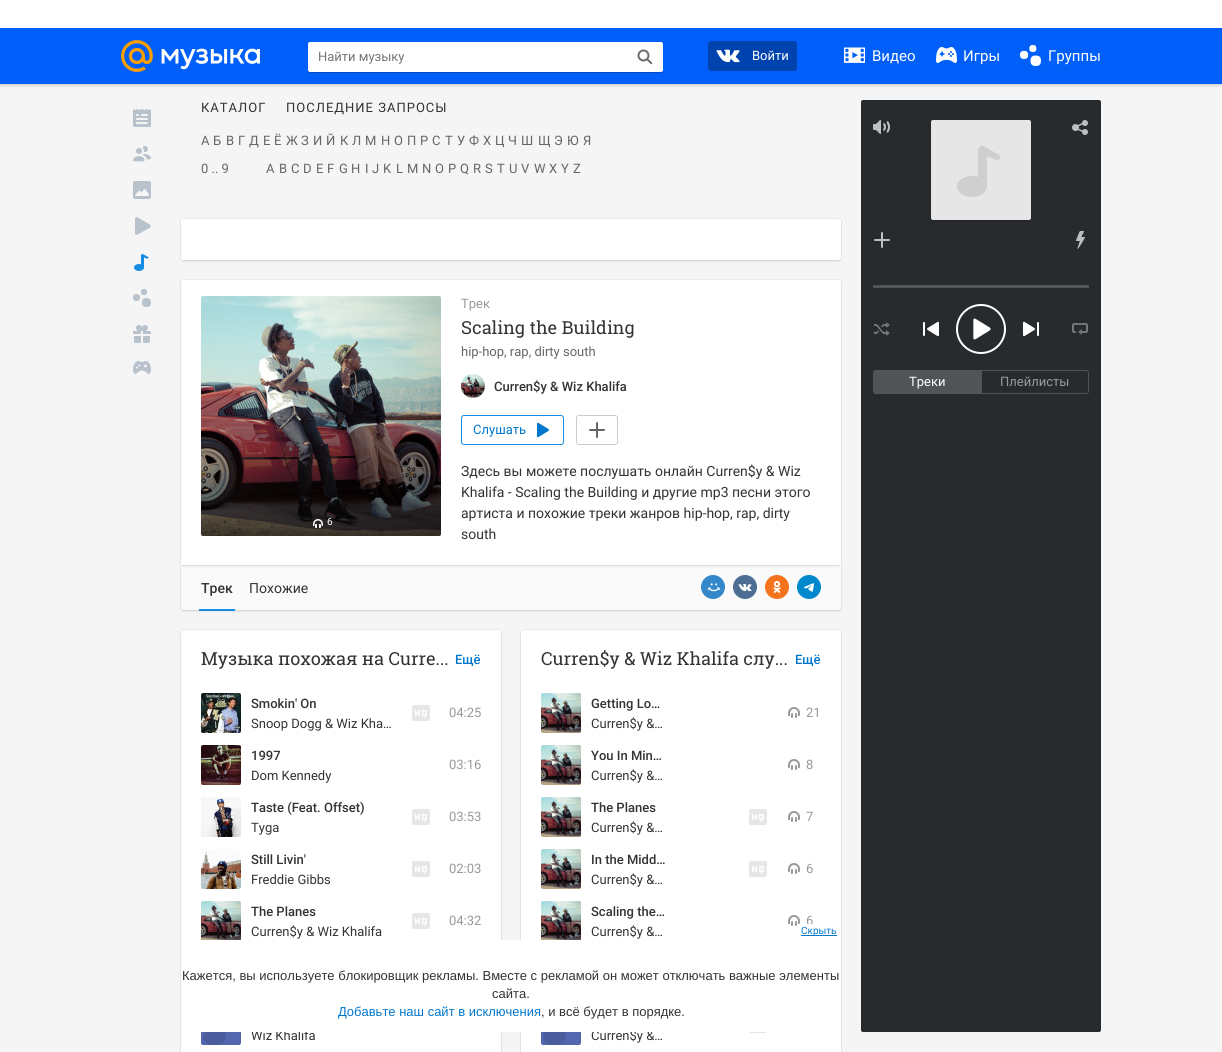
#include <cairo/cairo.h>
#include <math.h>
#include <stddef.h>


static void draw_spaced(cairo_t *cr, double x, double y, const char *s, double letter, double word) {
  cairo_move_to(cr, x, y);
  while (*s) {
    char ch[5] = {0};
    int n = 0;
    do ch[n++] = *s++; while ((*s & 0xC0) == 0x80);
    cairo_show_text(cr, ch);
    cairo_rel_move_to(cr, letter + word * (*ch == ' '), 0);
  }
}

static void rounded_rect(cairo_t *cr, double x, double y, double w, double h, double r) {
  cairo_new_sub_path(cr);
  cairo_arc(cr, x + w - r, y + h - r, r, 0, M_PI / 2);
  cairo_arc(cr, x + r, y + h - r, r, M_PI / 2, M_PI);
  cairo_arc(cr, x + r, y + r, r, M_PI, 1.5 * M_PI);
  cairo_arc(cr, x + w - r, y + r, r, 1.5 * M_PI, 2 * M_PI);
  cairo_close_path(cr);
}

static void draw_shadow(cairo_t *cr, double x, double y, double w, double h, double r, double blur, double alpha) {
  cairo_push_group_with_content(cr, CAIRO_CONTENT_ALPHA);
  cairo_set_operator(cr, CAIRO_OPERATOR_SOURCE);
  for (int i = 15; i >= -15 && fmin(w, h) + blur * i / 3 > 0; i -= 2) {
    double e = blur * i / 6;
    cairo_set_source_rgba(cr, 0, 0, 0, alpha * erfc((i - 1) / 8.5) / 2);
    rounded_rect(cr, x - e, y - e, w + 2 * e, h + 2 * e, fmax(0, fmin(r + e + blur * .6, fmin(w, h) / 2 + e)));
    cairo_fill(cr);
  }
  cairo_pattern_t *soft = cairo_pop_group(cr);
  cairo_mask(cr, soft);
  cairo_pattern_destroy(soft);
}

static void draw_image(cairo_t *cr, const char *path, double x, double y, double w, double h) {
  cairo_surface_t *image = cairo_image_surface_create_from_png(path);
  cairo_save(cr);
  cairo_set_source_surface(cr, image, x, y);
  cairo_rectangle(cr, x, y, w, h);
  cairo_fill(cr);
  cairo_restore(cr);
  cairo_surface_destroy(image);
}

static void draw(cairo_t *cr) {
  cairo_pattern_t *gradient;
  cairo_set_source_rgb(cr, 245 / 255.0, 245 / 255.0, 245 / 255.0);
  cairo_paint(cr);
  cairo_set_source_rgb(cr, 0, 0, 0);
  draw_shadow(cr, 0, 29, 1222, 56, 0, 2, 0.2);
  cairo_set_source_rgb(cr, 1, 1, 1);
  cairo_rectangle(cr, 0, 0, 1222, 28);
  cairo_fill(cr);
  cairo_set_source_rgb(cr, 0, 95 / 255.0, 249 / 255.0);
  cairo_rectangle(cr, 0, 28, 1222, 56);
  cairo_fill(cr);
  draw_image(cr, "images/1.png", 121, 40, 139, 32);
  cairo_set_source_rgb(cr, 0, 76 / 255.0, 199 / 255.0);
  cairo_new_path(cr);
  cairo_move_to(cr, 308, 70);
  cairo_curve_to(cr, 308, 71, 308, 73, 310, 73);
  cairo_line_to(cr, 661, 73);
  cairo_curve_to(cr, 663, 73, 663, 71, 663, 70);
  cairo_curve_to(cr, 663, 71, 662, 72, 661, 72);
  cairo_line_to(cr, 310, 72);
  cairo_curve_to(cr, 309, 72, 308, 71, 308, 70);
  cairo_close_path(cr);
  cairo_fill(cr);
  cairo_set_source_rgb(cr, 1, 1, 1);
  rounded_rect(cr, 308, 42, 355, 30, 2);
  cairo_fill(cr);
  draw_image(cr, "images/2.png", 637, 49, 16, 16);
  cairo_set_source_rgb(cr, 0, 67 / 255.0, 174 / 255.0);
  rounded_rect(cr, 708, 41, 89, 30, 3);
  cairo_fill(cr);
  draw_image(cr, "images/3.png", 716, 49, 24, 14);
  draw_image(cr, "images/4.png", 844, 47, 21, 16);
  draw_image(cr, "images/5.png", 936, 47, 21, 16);
  draw_image(cr, "images/6.png", 1020, 45, 21, 21);
  draw_image(cr, "images/7.png", 133, 109, 18, 18);
  draw_image(cr, "images/8.png", 133, 146, 18, 16);
  draw_image(cr, "images/9.png", 133, 181, 18, 18);
  draw_image(cr, "images/10.png", 135, 217, 16, 18);
  draw_image(cr, "images/11.png", 134, 254, 15, 17);
  draw_image(cr, "images/12.png", 133, 289, 18, 18);
  draw_image(cr, "images/13.png", 133, 325, 18, 18);
  draw_image(cr, "images/14.png", 133, 361, 18, 13);
  cairo_set_source_rgb(cr, 0, 0, 0);
  draw_shadow(cr, 181, 220, 660, 41, 2, 1, 0.12);
  draw_shadow(cr, 181, 219, 660, 41, 2, 0.5, 0.15);
  cairo_set_source_rgb(cr, 1, 1, 1);
  rounded_rect(cr, 181, 219, 660, 41, 2);
  cairo_fill(cr);
  cairo_set_source_rgb(cr, 0, 0, 0);
  draw_shadow(cr, 181, 566, 660, 45, 2, 1, 0.12);
  draw_shadow(cr, 181, 565, 660, 45, 2, 0.5, 0.15);
  cairo_set_source_rgb(cr, 250 / 255.0, 250 / 255.0, 250 / 255.0);
  cairo_new_path(cr);
  cairo_move_to(cr, 181, 565);
  cairo_line_to(cr, 841, 565);
  cairo_line_to(cr, 841, 608);
  cairo_curve_to(cr, 841, 609, 840, 610, 839, 610);
  cairo_line_to(cr, 183, 610);
  cairo_curve_to(cr, 182, 610, 181, 609, 181, 608);
  cairo_close_path(cr);
  cairo_fill(cr);
  cairo_set_source_rgb(cr, 0, 0, 0);
  draw_shadow(cr, 181, 281, 660, 285, 2, 1, 0.12);
  draw_shadow(cr, 181, 280, 660, 285, 2, 0.5, 0.15);
  cairo_set_source_rgb(cr, 1, 1, 1);
  cairo_new_path(cr);
  cairo_move_to(cr, 183, 280);
  cairo_line_to(cr, 839, 280);
  cairo_curve_to(cr, 840, 280, 841, 281, 841, 282);
  cairo_line_to(cr, 841, 565);
  cairo_line_to(cr, 181, 565);
  cairo_line_to(cr, 181, 282);
  cairo_curve_to(cr, 181, 281, 182, 280, 183, 280);
  cairo_close_path(cr);
  cairo_fill(cr);
  draw_image(cr, "images/15.png", 461, 374, 24, 24);
  rounded_rect(cr, 461.5, 415.5, 102, 29, 2.5);
  cairo_set_source_rgb(cr, 22 / 255.0, 141 / 255.0, 226 / 255.0);
  cairo_set_line_width(cr, 1);
  cairo_stroke(cr);
  draw_image(cr, "images/16.png", 537, 422, 12, 16);
  rounded_rect(cr, 576.5, 415.5, 41, 29, 2.5);
  cairo_set_source_rgb(cr, 204 / 255.0, 204 / 255.0, 204 / 255.0);
  cairo_stroke(cr);
  draw_image(cr, "images/17.png", 589, 422, 16, 16);
  draw_image(cr, "images/18.png", 201, 296, 240, 240);
  gradient = cairo_pattern_create_linear(321, 416, 321, 536);
  cairo_pattern_add_color_stop_rgba(gradient, 0, 0, 0, 0, 0);
  cairo_pattern_add_color_stop_rgba(gradient, 0.22, 0, 0, 0, 0.05);
  cairo_pattern_add_color_stop_rgba(gradient, 0.34, 0, 0, 0, 0.1);
  cairo_pattern_add_color_stop_rgba(gradient, 0.62, 0, 0, 0, 0.3);
  cairo_pattern_add_color_stop_rgba(gradient, 1, 0, 0, 0, 0.7);
  cairo_set_source(cr, gradient);
  cairo_pattern_destroy(gradient);
  cairo_new_path(cr);
  cairo_move_to(cr, 201, 416);
  cairo_line_to(cr, 441, 416);
  cairo_line_to(cr, 441, 534);
  cairo_curve_to(cr, 441, 535, 440, 536, 439, 536);
  cairo_line_to(cr, 203, 536);
  cairo_curve_to(cr, 202, 536, 201, 535, 201, 534);
  cairo_close_path(cr);
  cairo_fill(cr);
  draw_image(cr, "images/19.png", 313, 519, 10, 9);
  cairo_set_source_rgb(cr, 22 / 255.0, 141 / 255.0, 226 / 255.0);
  cairo_rectangle(cr, 199, 609, 36, 2);
  cairo_fill(cr);
  cairo_set_source_rgb(cr, 52 / 255.0, 136 / 255.0, 201 / 255.0);
  cairo_arc(cr, 713, 587, 11.5, 0, 2 * M_PI);
  cairo_fill_preserve(cr);
  cairo_stroke(cr);
  draw_image(cr, "images/20.png", 707, 583, 14, 9);
  cairo_set_source_rgb(cr, 77 / 255.0, 109 / 255.0, 147 / 255.0);
  cairo_arc(cr, 745, 587, 11.5, 0, 2 * M_PI);
  cairo_fill_preserve(cr);
  cairo_stroke(cr);
  draw_image(cr, "images/21.png", 738, 584, 14, 7);
  cairo_set_source_rgb(cr, 245 / 255.0, 115 / 255.0, 29 / 255.0);
  cairo_arc(cr, 777, 587, 11.5, 0, 2 * M_PI);
  cairo_fill_preserve(cr);
  cairo_stroke(cr);
  draw_image(cr, "images/22.png", 773, 581, 8, 12);
  cairo_set_source_rgb(cr, 0, 136 / 255.0, 204 / 255.0);
  cairo_arc(cr, 809, 587, 11.5, 0, 2 * M_PI);
  cairo_fill_preserve(cr);
  cairo_stroke(cr);
  draw_image(cr, "images/23.png", 803, 583, 11, 9);
  cairo_set_source_rgb(cr, 0, 0, 0);
  draw_shadow(cr, 181, 631, 320, 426, 2, 1, 0.12);
  draw_shadow(cr, 181, 630, 320, 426, 2, 0.5, 0.15);
  cairo_set_source_rgb(cr, 1, 1, 1);
  rounded_rect(cr, 181, 630, 320, 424, 2);
  cairo_fill(cr);
  draw_image(cr, "images/24.png", 201, 693, 40, 40);
  draw_image(cr, "images/25.png", 412, 705, 18, 16);
  draw_image(cr, "images/26.png", 201, 745, 40, 40);
  draw_image(cr, "images/27.png", 201, 797, 40, 40);
  draw_image(cr, "images/25.png", 412, 809, 18, 16);
  draw_image(cr, "images/28.png", 201, 849, 40, 40);
  draw_image(cr, "images/25.png", 412, 861, 18, 16);
  draw_image(cr, "images/29.png", 201, 901, 40, 39);
  draw_image(cr, "images/25.png", 412, 913, 18, 16);
  cairo_set_source_rgb(cr, 83 / 255.0, 103 / 255.0, 175 / 255.0);
  rounded_rect(cr, 201, 1005, 40, 40, 2);
  cairo_fill(cr);
  draw_image(cr, "images/30.png", 203, 1032, 23, 13);
  cairo_set_source_rgb(cr, 0, 0, 0);
  draw_shadow(cr, 521, 631, 320, 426, 2, 1, 0.12);
  draw_shadow(cr, 521, 630, 320, 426, 2, 0.5, 0.15);
  cairo_set_source_rgb(cr, 1, 1, 1);
  rounded_rect(cr, 521, 630, 320, 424, 2);
  cairo_fill(cr);
  draw_image(cr, "images/31.png", 541, 693, 40, 40);
  draw_image(cr, "images/32.png", 788, 707, 12, 11);
  draw_image(cr, "images/33.png", 541, 745, 40, 40);
  draw_image(cr, "images/32.png", 788, 759, 12, 11);
  draw_image(cr, "images/34.png", 541, 797, 40, 40);
  draw_image(cr, "images/25.png", 749, 809, 18, 16);
  draw_image(cr, "images/32.png", 788, 811, 12, 11);
  draw_image(cr, "images/35.png", 541, 849, 40, 40);
  draw_image(cr, "images/25.png", 749, 861, 18, 16);
  draw_image(cr, "images/32.png", 788, 863, 12, 11);
  draw_image(cr, "images/29.png", 541, 901, 40, 39);
  draw_image(cr, "images/32.png", 788, 915, 12, 11);
  cairo_set_source_rgb(cr, 83 / 255.0, 103 / 255.0, 175 / 255.0);
  rounded_rect(cr, 541, 1005, 40, 40, 2);
  cairo_fill(cr);
  draw_image(cr, "images/30.png", 543, 1032, 23, 13);
  draw_image(cr, "images/36.png", 749, 1032, 18, 1);
  cairo_set_source_rgb(cr, 40 / 255.0, 43 / 255.0, 46 / 255.0);
  rounded_rect(cr, 861, 100, 240, 932, 2);
  cairo_fill(cr);
  cairo_set_source_rgb(cr, 0, 0, 0);
  draw_shadow(cr, 931, 121, 100, 100, 2, 1, 0.24);
  cairo_set_source_rgb(cr, 230 / 255.0, 230 / 255.0, 230 / 255.0);
  rounded_rect(cr, 931, 120, 100, 100, 2);
  cairo_fill(cr);
  draw_image(cr, "images/37.png", 957, 146, 44, 51);
  draw_image(cr, "images/38.png", 873, 120, 17, 14);
  draw_image(cr, "images/39.png", 1072, 120, 16, 15);
  draw_image(cr, "images/40.png", 874, 232, 16, 16);
  draw_image(cr, "images/41.png", 1076, 231, 9, 18);
  cairo_set_source_rgb(cr, 83 / 255.0, 85 / 255.0, 88 / 255.0);
  rounded_rect(cr, 873, 285, 216, 3, 1);
  cairo_fill(cr);
  draw_image(cr, "images/42.png", 874, 322, 16, 14);
  draw_image(cr, "images/43.png", 923, 321, 16, 16);
  cairo_arc(cr, 981, 329, 24, 0, 2 * M_PI);
  cairo_set_source_rgb(cr, 1, 1, 1);
  cairo_set_line_width(cr, 2);
  cairo_stroke(cr);
  draw_image(cr, "images/44.png", 973, 318, 18, 22);
  draw_image(cr, "images/45.png", 1023, 321, 16, 16);
  draw_image(cr, "images/46.png", 1072, 323, 16, 12);
  cairo_set_source_rgb(cr, 81 / 255.0, 84 / 255.0, 87 / 255.0);
  cairo_new_path(cr);
  cairo_move_to(cr, 876, 370.5);
  cairo_line_to(cr, 980.5, 370.5);
  cairo_line_to(cr, 980.5, 393.5);
  cairo_line_to(cr, 876, 393.5);
  cairo_curve_to(cr, 874.5, 393.5, 873.5, 392.5, 873.5, 391);
  cairo_line_to(cr, 873.5, 373);
  cairo_curve_to(cr, 873.5, 371.5, 874.5, 370.5, 876, 370.5);
  cairo_close_path(cr);
  cairo_fill_preserve(cr);
  cairo_set_line_width(cr, 1);
  cairo_stroke(cr);
  cairo_new_path(cr);
  cairo_move_to(cr, 981.5, 370.5);
  cairo_line_to(cr, 1086, 370.5);
  cairo_curve_to(cr, 1087.5, 370.5, 1088.5, 371.5, 1088.5, 373);
  cairo_line_to(cr, 1088.5, 391);
  cairo_curve_to(cr, 1088.5, 392.5, 1087.5, 393.5, 1086, 393.5);
  cairo_line_to(cr, 981.5, 393.5);
  cairo_close_path(cr);
  cairo_stroke(cr);
  cairo_set_source_rgb(cr, 0, 119 / 255.0, 204 / 255.0);
  cairo_rectangle(cr, 801, 935, 36, 1);
  cairo_fill(cr);
  cairo_select_font_face(cr, "Roboto", CAIRO_FONT_SLANT_NORMAL, CAIRO_FONT_WEIGHT_NORMAL);
  cairo_set_font_size(cr, 13);
  cairo_set_source_rgb(cr, 117 / 255.0, 117 / 255.0, 117 / 255.0);
  cairo_move_to(cr, 318, 61);
  cairo_show_text(cr, "Найти музыку");
  cairo_set_source_rgb(cr, 1, 1, 1);
  cairo_move_to(cr, 752, 60);
  cairo_show_text(cr, "Войти");
  cairo_set_font_size(cr, 15);
  cairo_move_to(cr, 872, 61);
  cairo_show_text(cr, "Видео");
  cairo_move_to(cr, 963, 61);
  cairo_show_text(cr, "Игры");
  cairo_move_to(cr, 1048, 61);
  cairo_show_text(cr, "Группы");
  cairo_set_font_size(cr, 13);
  cairo_set_source_rgb(cr, 51 / 255.0, 51 / 255.0, 51 / 255.0);
  draw_spaced(cr, 201, 112, "КАТАЛОГ", 1, 0);
  draw_spaced(cr, 286, 112, "ПОСЛЕДНИЕ ЗАПРОСЫ", 1, 0);
  cairo_set_source_rgb(cr, 102 / 255.0, 102 / 255.0, 102 / 255.0);
  cairo_move_to(cr, 201, 145);
  cairo_show_text(cr, "А");
  cairo_move_to(cr, 213, 145);
  cairo_show_text(cr, "Б");
  cairo_move_to(cr, 226, 145);
  cairo_show_text(cr, "В");
  cairo_move_to(cr, 238, 145);
  cairo_show_text(cr, "Г");
  cairo_move_to(cr, 249, 145);
  cairo_show_text(cr, "Д");
  cairo_move_to(cr, 263, 145);
  cairo_show_text(cr, "Е");
  cairo_move_to(cr, 274, 145);
  cairo_show_text(cr, "Ё");
  cairo_move_to(cr, 286, 145);
  cairo_show_text(cr, "Ж");
  cairo_move_to(cr, 301, 145);
  cairo_show_text(cr, "З");
  cairo_move_to(cr, 313, 145);
  cairo_show_text(cr, "И");
  cairo_move_to(cr, 326, 145);
  cairo_show_text(cr, "Й");
  cairo_move_to(cr, 340, 145);
  cairo_show_text(cr, "К");
  cairo_move_to(cr, 352, 145);
  cairo_show_text(cr, "Л");
  cairo_move_to(cr, 365, 145);
  cairo_show_text(cr, "М");
  cairo_move_to(cr, 381, 145);
  cairo_show_text(cr, "Н");
  cairo_move_to(cr, 394, 145);
  cairo_show_text(cr, "О");
  cairo_move_to(cr, 407, 145);
  cairo_show_text(cr, "П");
  cairo_move_to(cr, 420, 145);
  cairo_show_text(cr, "Р");
  cairo_move_to(cr, 432, 145);
  cairo_show_text(cr, "С");
  cairo_move_to(cr, 445, 145);
  cairo_show_text(cr, "Т");
  cairo_move_to(cr, 457, 145);
  cairo_show_text(cr, "У");
  cairo_move_to(cr, 469, 145);
  cairo_show_text(cr, "Ф");
  cairo_move_to(cr, 483, 145);
  cairo_show_text(cr, "Х");
  cairo_move_to(cr, 495, 145);
  cairo_show_text(cr, "Ц");
  cairo_move_to(cr, 508, 145);
  cairo_show_text(cr, "Ч");
  cairo_move_to(cr, 521, 145);
  cairo_show_text(cr, "Ш");
  cairo_move_to(cr, 538, 145);
  cairo_show_text(cr, "Щ");
  cairo_move_to(cr, 554, 145);
  cairo_show_text(cr, "Э");
  cairo_move_to(cr, 567, 145);
  cairo_show_text(cr, "Ю");
  cairo_move_to(cr, 583, 145);
  cairo_show_text(cr, "Я");
  cairo_move_to(cr, 201, 173);
  cairo_show_text(cr, "0 .. 9");
  cairo_move_to(cr, 266, 173);
  cairo_show_text(cr, "A");
  cairo_move_to(cr, 279, 173);
  cairo_show_text(cr, "B");
  cairo_move_to(cr, 291, 173);
  cairo_show_text(cr, "C");
  cairo_move_to(cr, 303, 173);
  cairo_show_text(cr, "D");
  cairo_move_to(cr, 316, 173);
  cairo_show_text(cr, "E");
  cairo_move_to(cr, 327, 173);
  cairo_show_text(cr, "F");
  cairo_move_to(cr, 339, 173);
  cairo_show_text(cr, "G");
  cairo_move_to(cr, 351, 173);
  cairo_show_text(cr, "H");
  cairo_move_to(cr, 365, 173);
  cairo_show_text(cr, "I");
  cairo_move_to(cr, 372, 173);
  cairo_show_text(cr, "J");
  cairo_move_to(cr, 383, 173);
  cairo_show_text(cr, "K");
  cairo_move_to(cr, 396, 173);
  cairo_show_text(cr, "L");
  cairo_move_to(cr, 407, 173);
  cairo_show_text(cr, "M");
  cairo_move_to(cr, 422, 173);
  cairo_show_text(cr, "N");
  cairo_move_to(cr, 435, 173);
  cairo_show_text(cr, "O");
  cairo_move_to(cr, 448, 173);
  cairo_show_text(cr, "P");
  cairo_move_to(cr, 460, 173);
  cairo_show_text(cr, "Q");
  cairo_move_to(cr, 473, 173);
  cairo_show_text(cr, "R");
  cairo_move_to(cr, 485, 173);
  cairo_show_text(cr, "S");
  cairo_move_to(cr, 497, 173);
  cairo_show_text(cr, "T");
  cairo_move_to(cr, 509, 173);
  cairo_show_text(cr, "U");
  cairo_move_to(cr, 521, 173);
  cairo_show_text(cr, "V");
  cairo_move_to(cr, 534, 173);
  cairo_show_text(cr, "W");
  cairo_move_to(cr, 549, 173);
  cairo_show_text(cr, "X");
  cairo_move_to(cr, 561, 173);
  cairo_show_text(cr, "Y");
  cairo_move_to(cr, 573, 173);
  cairo_show_text(cr, "Z");
  cairo_set_source_rgb(cr, 153 / 255.0, 153 / 255.0, 153 / 255.0);
  cairo_move_to(cr, 461, 308);
  cairo_show_text(cr, "Трек");
  cairo_select_font_face(cr, "Roboto Slab", CAIRO_FONT_SLANT_NORMAL, CAIRO_FONT_WEIGHT_NORMAL);
  cairo_set_font_size(cr, 18);
  cairo_set_source_rgb(cr, 51 / 255.0, 51 / 255.0, 51 / 255.0);
  cairo_move_to(cr, 461, 334);
  cairo_show_text(cr, "Scaling the Building");
  cairo_select_font_face(cr, "Roboto", CAIRO_FONT_SLANT_NORMAL, CAIRO_FONT_WEIGHT_NORMAL);
  cairo_set_font_size(cr, 13);
  cairo_set_source_rgb(cr, 102 / 255.0, 102 / 255.0, 102 / 255.0);
  cairo_move_to(cr, 461, 356);
  cairo_show_text(cr, "hip-hop, rap, dirty south");
  cairo_select_font_face(cr, "Roboto Medium", CAIRO_FONT_SLANT_NORMAL, CAIRO_FONT_WEIGHT_NORMAL);
  cairo_set_source_rgb(cr, 51 / 255.0, 51 / 255.0, 51 / 255.0);
  cairo_move_to(cr, 494, 391);
  cairo_show_text(cr, "Curren$y & Wiz Khalifa");
  cairo_select_font_face(cr, "Roboto", CAIRO_FONT_SLANT_NORMAL, CAIRO_FONT_WEIGHT_NORMAL);
  cairo_set_source_rgb(cr, 0, 119 / 255.0, 204 / 255.0);
  cairo_move_to(cr, 473, 434);
  cairo_show_text(cr, "Слушать");
  cairo_set_font_size(cr, 10);
  cairo_set_source_rgb(cr, 1, 1, 1);
  cairo_move_to(cr, 327, 525);
  cairo_show_text(cr, "6");
  cairo_set_font_size(cr, 14);
  cairo_set_source_rgb(cr, 51 / 255.0, 51 / 255.0, 51 / 255.0);
  cairo_move_to(cr, 461, 476);
  cairo_show_text(cr, "Здесь вы можете послушать онлайн Curren$y & Wiz");
  cairo_move_to(cr, 461, 497);
  cairo_show_text(cr, "Khalifa - Scaling the Building и другие mp3 песни этого");
  cairo_move_to(cr, 461, 518);
  cairo_show_text(cr, "артиста и похожие треки жанров hip-hop, rap, dirty");
  cairo_move_to(cr, 461, 539);
  cairo_show_text(cr, "south");
  cairo_select_font_face(cr, "Roboto Medium", CAIRO_FONT_SLANT_NORMAL, CAIRO_FONT_WEIGHT_NORMAL);
  cairo_move_to(cr, 201, 593);
  cairo_show_text(cr, "Трек");
  cairo_select_font_face(cr, "Roboto", CAIRO_FONT_SLANT_NORMAL, CAIRO_FONT_WEIGHT_NORMAL);
  cairo_move_to(cr, 249, 593);
  cairo_show_text(cr, "Похожие");
  cairo_select_font_face(cr, "Roboto Slab", CAIRO_FONT_SLANT_NORMAL, CAIRO_FONT_WEIGHT_NORMAL);
  cairo_set_font_size(cr, 18);
  cairo_move_to(cr, 201, 665);
  cairo_show_text(cr, "Музыка похожая на Curre...");
  cairo_select_font_face(cr, "Roboto Medium", CAIRO_FONT_SLANT_NORMAL, CAIRO_FONT_WEIGHT_NORMAL);
  cairo_set_font_size(cr, 13);
  cairo_set_source_rgb(cr, 0, 119 / 255.0, 204 / 255.0);
  cairo_move_to(cr, 455, 664);
  cairo_show_text(cr, "Ещё");
  cairo_set_source_rgb(cr, 51 / 255.0, 51 / 255.0, 51 / 255.0);
  cairo_move_to(cr, 251, 708);
  cairo_show_text(cr, "Smokin' On");
  cairo_select_font_face(cr, "Roboto", CAIRO_FONT_SLANT_NORMAL, CAIRO_FONT_WEIGHT_NORMAL);
  cairo_move_to(cr, 251, 728);
  cairo_show_text(cr, "Snoop Dogg & Wiz Kha…");
  cairo_set_source_rgb(cr, 153 / 255.0, 153 / 255.0, 153 / 255.0);
  cairo_move_to(cr, 449, 717);
  cairo_show_text(cr, "04:25");
  cairo_select_font_face(cr, "Roboto Medium", CAIRO_FONT_SLANT_NORMAL, CAIRO_FONT_WEIGHT_NORMAL);
  cairo_set_source_rgb(cr, 51 / 255.0, 51 / 255.0, 51 / 255.0);
  cairo_move_to(cr, 251, 760);
  cairo_show_text(cr, "1997");
  cairo_select_font_face(cr, "Roboto", CAIRO_FONT_SLANT_NORMAL, CAIRO_FONT_WEIGHT_NORMAL);
  cairo_move_to(cr, 251, 780);
  cairo_show_text(cr, "Dom Kennedy");
  cairo_set_source_rgb(cr, 153 / 255.0, 153 / 255.0, 153 / 255.0);
  cairo_move_to(cr, 449, 769);
  cairo_show_text(cr, "03:16");
  cairo_select_font_face(cr, "Roboto Medium", CAIRO_FONT_SLANT_NORMAL, CAIRO_FONT_WEIGHT_NORMAL);
  cairo_set_source_rgb(cr, 51 / 255.0, 51 / 255.0, 51 / 255.0);
  cairo_move_to(cr, 251, 812);
  cairo_show_text(cr, "Taste (Feat. Offset)");
  cairo_select_font_face(cr, "Roboto", CAIRO_FONT_SLANT_NORMAL, CAIRO_FONT_WEIGHT_NORMAL);
  cairo_move_to(cr, 251, 832);
  cairo_show_text(cr, "Tyga");
  cairo_set_source_rgb(cr, 153 / 255.0, 153 / 255.0, 153 / 255.0);
  cairo_move_to(cr, 449, 821);
  cairo_show_text(cr, "03:53");
  cairo_select_font_face(cr, "Roboto Medium", CAIRO_FONT_SLANT_NORMAL, CAIRO_FONT_WEIGHT_NORMAL);
  cairo_set_source_rgb(cr, 51 / 255.0, 51 / 255.0, 51 / 255.0);
  cairo_move_to(cr, 251, 864);
  cairo_show_text(cr, "Still Livin'");
  cairo_select_font_face(cr, "Roboto", CAIRO_FONT_SLANT_NORMAL, CAIRO_FONT_WEIGHT_NORMAL);
  cairo_move_to(cr, 251, 884);
  cairo_show_text(cr, "Freddie Gibbs");
  cairo_set_source_rgb(cr, 153 / 255.0, 153 / 255.0, 153 / 255.0);
  cairo_move_to(cr, 449, 873);
  cairo_show_text(cr, "02:03");
  cairo_select_font_face(cr, "Roboto Medium", CAIRO_FONT_SLANT_NORMAL, CAIRO_FONT_WEIGHT_NORMAL);
  cairo_set_source_rgb(cr, 51 / 255.0, 51 / 255.0, 51 / 255.0);
  cairo_move_to(cr, 251, 916);
  cairo_show_text(cr, "The Planes");
  cairo_select_font_face(cr, "Roboto", CAIRO_FONT_SLANT_NORMAL, CAIRO_FONT_WEIGHT_NORMAL);
  cairo_move_to(cr, 251, 936);
  cairo_show_text(cr, "Curren$y & Wiz Khalifa");
  cairo_set_source_rgb(cr, 153 / 255.0, 153 / 255.0, 153 / 255.0);
  cairo_move_to(cr, 449, 925);
  cairo_show_text(cr, "04:32");
  cairo_set_source_rgb(cr, 51 / 255.0, 51 / 255.0, 51 / 255.0);
  cairo_move_to(cr, 251, 1040);
  cairo_show_text(cr, "Wiz Khalifa");
  cairo_select_font_face(cr, "Roboto Slab", CAIRO_FONT_SLANT_NORMAL, CAIRO_FONT_WEIGHT_NORMAL);
  cairo_set_font_size(cr, 18);
  cairo_move_to(cr, 541, 665);
  cairo_show_text(cr, "Curren$y & Wiz Khalifa слу...");
  cairo_select_font_face(cr, "Roboto Medium", CAIRO_FONT_SLANT_NORMAL, CAIRO_FONT_WEIGHT_NORMAL);
  cairo_set_font_size(cr, 13);
  cairo_set_source_rgb(cr, 0, 119 / 255.0, 204 / 255.0);
  cairo_move_to(cr, 795, 664);
  cairo_show_text(cr, "Ещё");
  cairo_set_source_rgb(cr, 51 / 255.0, 51 / 255.0, 51 / 255.0);
  cairo_move_to(cr, 591, 708);
  cairo_show_text(cr, "Getting Lo…");
  cairo_select_font_face(cr, "Roboto", CAIRO_FONT_SLANT_NORMAL, CAIRO_FONT_WEIGHT_NORMAL);
  cairo_move_to(cr, 591, 728);
  cairo_show_text(cr, "Curren$y &…");
  cairo_set_source_rgb(cr, 153 / 255.0, 153 / 255.0, 153 / 255.0);
  cairo_move_to(cr, 806, 717);
  cairo_show_text(cr, "21");
  cairo_select_font_face(cr, "Roboto Medium", CAIRO_FONT_SLANT_NORMAL, CAIRO_FONT_WEIGHT_NORMAL);
  cairo_set_source_rgb(cr, 51 / 255.0, 51 / 255.0, 51 / 255.0);
  cairo_move_to(cr, 591, 760);
  cairo_show_text(cr, "You In Min…");
  cairo_select_font_face(cr, "Roboto", CAIRO_FONT_SLANT_NORMAL, CAIRO_FONT_WEIGHT_NORMAL);
  cairo_move_to(cr, 591, 780);
  cairo_show_text(cr, "Curren$y &…");
  cairo_set_source_rgb(cr, 153 / 255.0, 153 / 255.0, 153 / 255.0);
  cairo_move_to(cr, 806, 769);
  cairo_show_text(cr, "8");
  cairo_select_font_face(cr, "Roboto Medium", CAIRO_FONT_SLANT_NORMAL, CAIRO_FONT_WEIGHT_NORMAL);
  cairo_set_source_rgb(cr, 51 / 255.0, 51 / 255.0, 51 / 255.0);
  cairo_move_to(cr, 591, 812);
  cairo_show_text(cr, "The Planes");
  cairo_select_font_face(cr, "Roboto", CAIRO_FONT_SLANT_NORMAL, CAIRO_FONT_WEIGHT_NORMAL);
  cairo_move_to(cr, 591, 832);
  cairo_show_text(cr, "Curren$y &…");
  cairo_set_source_rgb(cr, 153 / 255.0, 153 / 255.0, 153 / 255.0);
  cairo_move_to(cr, 806, 821);
  cairo_show_text(cr, "7");
  cairo_select_font_face(cr, "Roboto Medium", CAIRO_FONT_SLANT_NORMAL, CAIRO_FONT_WEIGHT_NORMAL);
  cairo_set_source_rgb(cr, 51 / 255.0, 51 / 255.0, 51 / 255.0);
  cairo_move_to(cr, 591, 864);
  cairo_show_text(cr, "In the Midd…");
  cairo_select_font_face(cr, "Roboto", CAIRO_FONT_SLANT_NORMAL, CAIRO_FONT_WEIGHT_NORMAL);
  cairo_move_to(cr, 591, 884);
  cairo_show_text(cr, "Curren$y &…");
  cairo_set_source_rgb(cr, 153 / 255.0, 153 / 255.0, 153 / 255.0);
  cairo_move_to(cr, 806, 873);
  cairo_show_text(cr, "6");
  cairo_select_font_face(cr, "Roboto Medium", CAIRO_FONT_SLANT_NORMAL, CAIRO_FONT_WEIGHT_NORMAL);
  cairo_set_source_rgb(cr, 51 / 255.0, 51 / 255.0, 51 / 255.0);
  cairo_move_to(cr, 591, 916);
  cairo_show_text(cr, "Scaling the…");
  cairo_select_font_face(cr, "Roboto", CAIRO_FONT_SLANT_NORMAL, CAIRO_FONT_WEIGHT_NORMAL);
  cairo_move_to(cr, 591, 936);
  cairo_show_text(cr, "Curren$y &…");
  cairo_set_source_rgb(cr, 153 / 255.0, 153 / 255.0, 153 / 255.0);
  cairo_move_to(cr, 806, 925);
  cairo_show_text(cr, "6");
  cairo_set_source_rgb(cr, 51 / 255.0, 51 / 255.0, 51 / 255.0);
  cairo_move_to(cr, 591, 1040);
  cairo_show_text(cr, "Curren$y &…");
  cairo_set_source_rgb(cr, 1, 1, 1);
  cairo_move_to(cr, 909, 386);
  cairo_show_text(cr, "Треки");
  cairo_set_source_rgb(cr, 153 / 255.0, 153 / 255.0, 153 / 255.0);
  cairo_move_to(cr, 1000, 386);
  cairo_show_text(cr, "Плейлисты");
  cairo_set_source_rgb(cr, 1, 1, 1);
  cairo_rectangle(cr, 201, 940, 451, 92);
  cairo_fill(cr);
  cairo_rectangle(cr, 798, 924, 15, 2);
  cairo_fill(cr);
  cairo_set_font_size(cr, 10);
  cairo_set_source_rgb(cr, 0, 119 / 255.0, 204 / 255.0);
  cairo_move_to(cr, 801, 934);
  cairo_show_text(cr, "Скрыть");
  cairo_select_font_face(cr, "Liberation Sans", CAIRO_FONT_SLANT_NORMAL, CAIRO_FONT_WEIGHT_NORMAL);
  cairo_set_font_size(cr, 13);
  cairo_set_source_rgb(cr, 51 / 255.0, 51 / 255.0, 51 / 255.0);
  cairo_move_to(cr, 182, 980);
  cairo_show_text(cr, "Кажется, вы используете блокировщик рекламы. Вместе с рекламой он может отключать важные элементы");
  cairo_move_to(cr, 492, 998);
  cairo_show_text(cr, "сайта.");
  cairo_set_source_rgb(cr, 0, 119 / 255.0, 204 / 255.0);
  cairo_move_to(cr, 338, 1016);
  cairo_show_text(cr, "Добавьте наш сайт в исключения");
  cairo_set_source_rgb(cr, 51 / 255.0, 51 / 255.0, 51 / 255.0);
  cairo_move_to(cr, 541, 1016);
  cairo_show_text(cr, ", и всё будет в порядке.");
}

int main(void) {
  cairo_surface_t *surface = cairo_image_surface_create(CAIRO_FORMAT_RGB24, 1222, 1052);
  cairo_t *cr = cairo_create(surface);
  cairo_font_options_t *options = cairo_font_options_create();
  cairo_font_options_set_hint_metrics(options, CAIRO_HINT_METRICS_OFF);
  cairo_font_options_set_hint_style(options, CAIRO_HINT_STYLE_NONE);
  cairo_set_font_options(cr, options);
  cairo_set_miter_limit(cr, 4);
  draw(cr);
  cairo_surface_write_to_png(surface, "out.png");
  cairo_font_options_destroy(options);
  cairo_destroy(cr);
  cairo_surface_destroy(surface);
  return 0;
}
